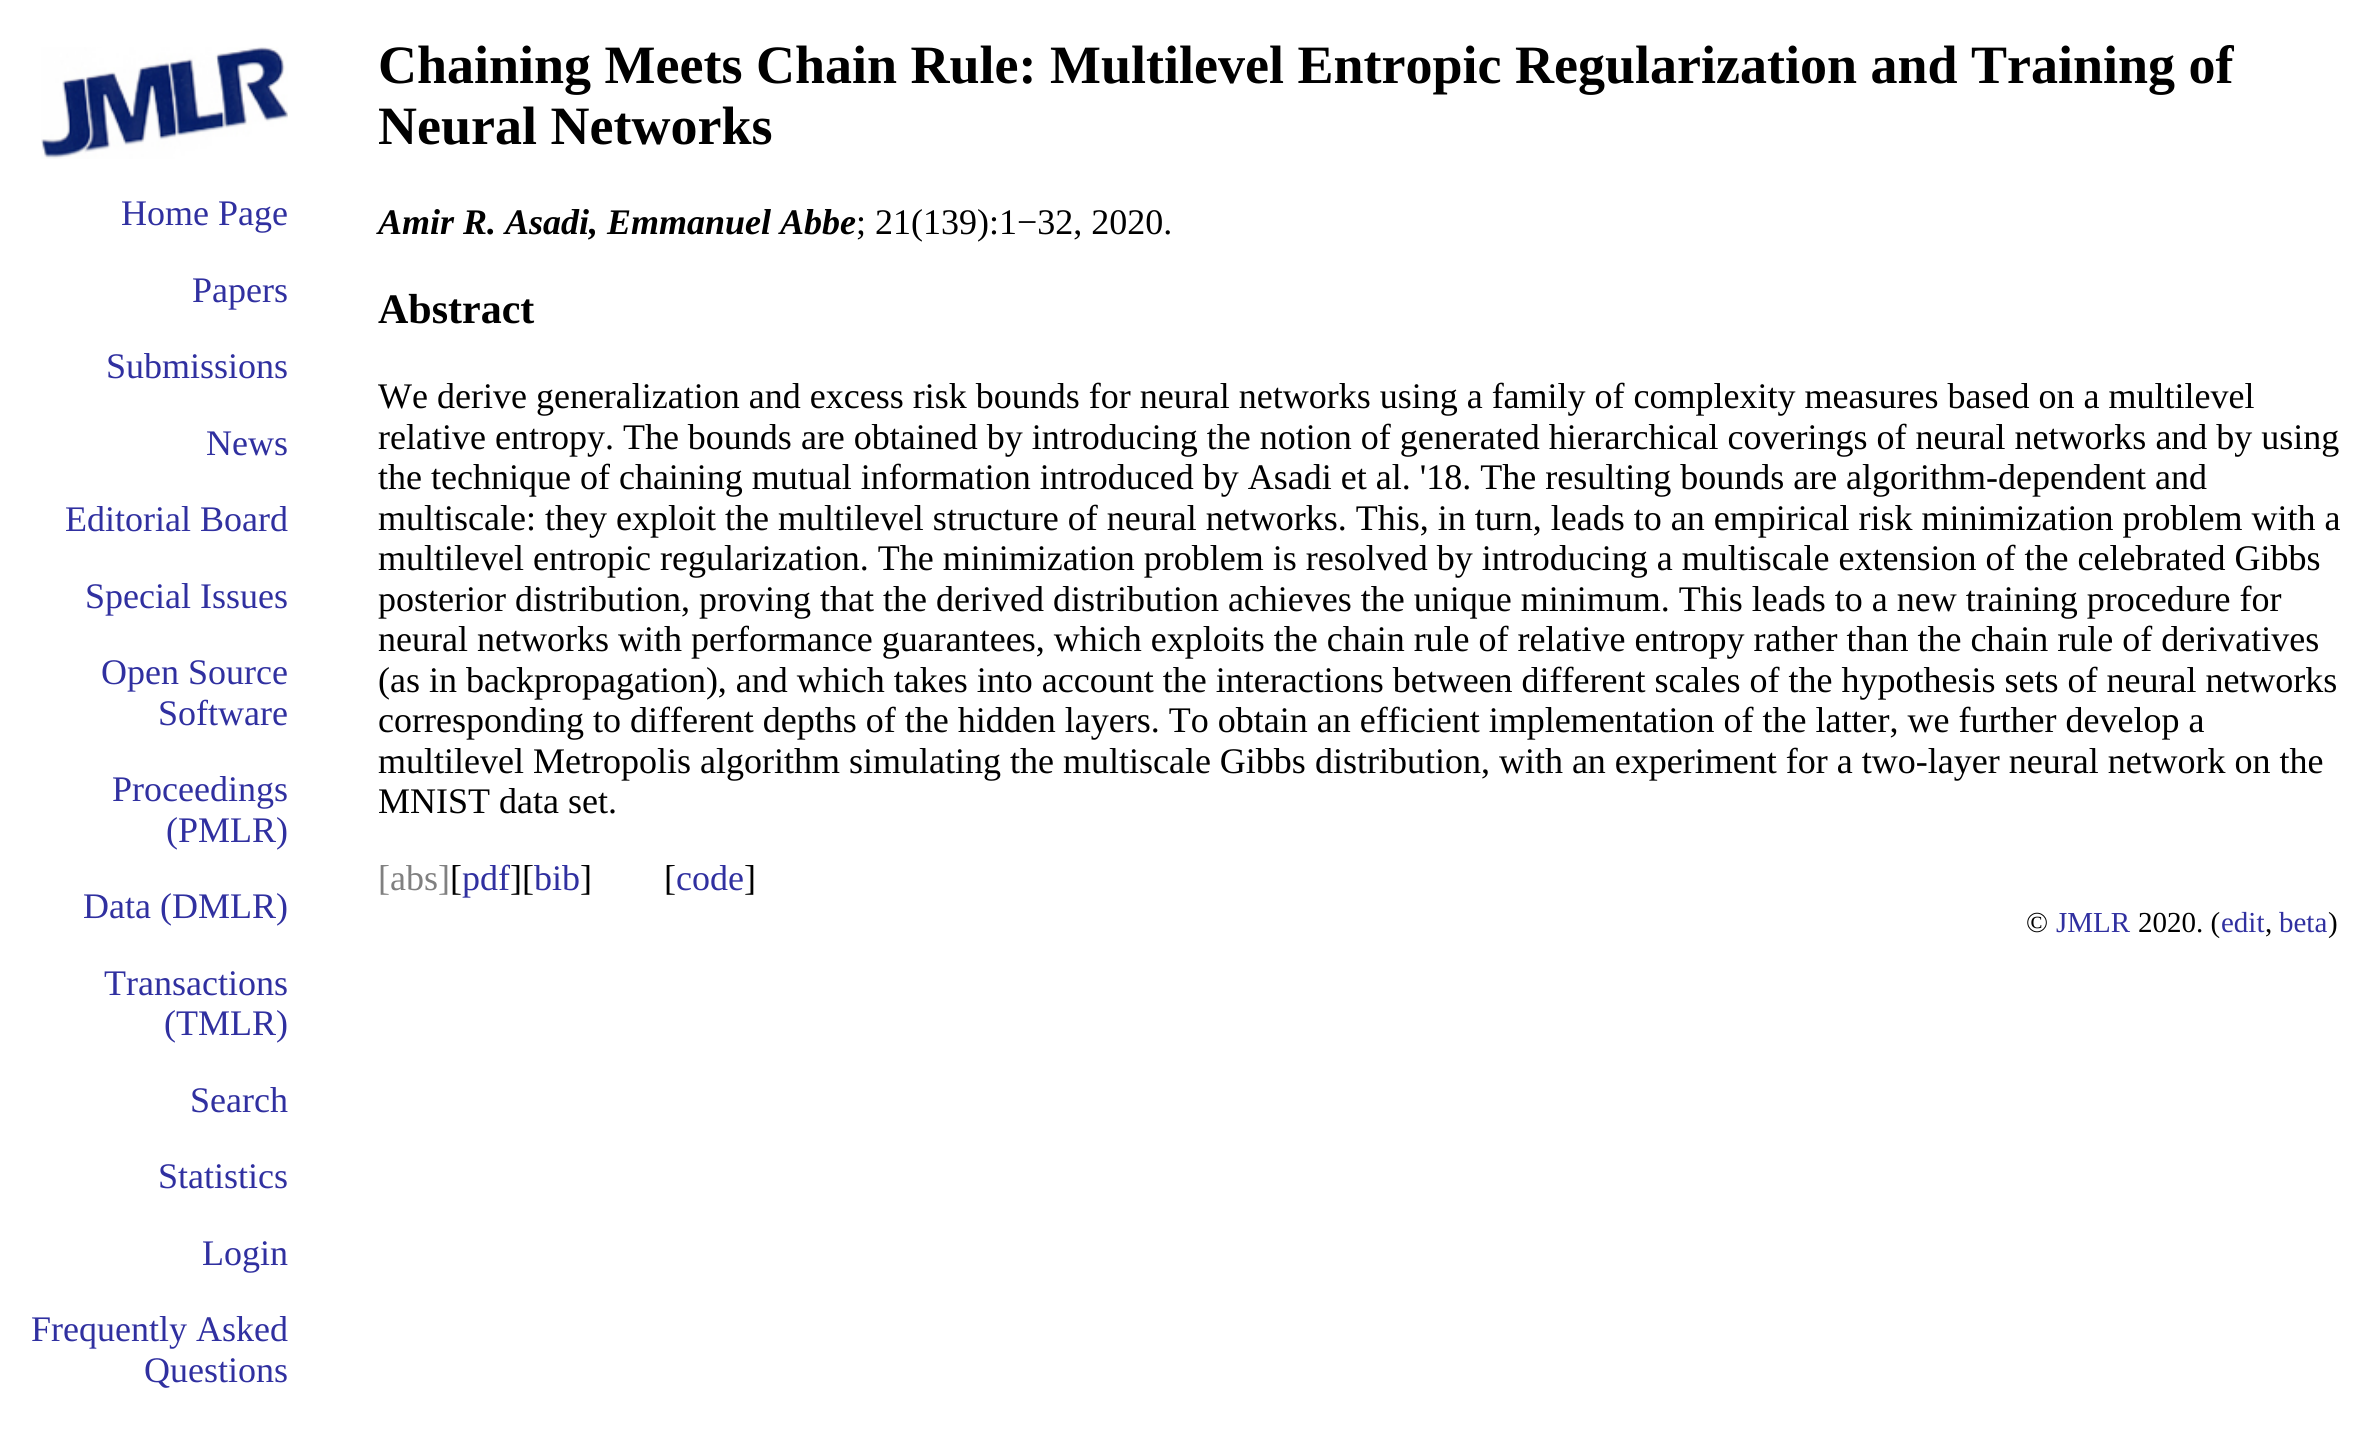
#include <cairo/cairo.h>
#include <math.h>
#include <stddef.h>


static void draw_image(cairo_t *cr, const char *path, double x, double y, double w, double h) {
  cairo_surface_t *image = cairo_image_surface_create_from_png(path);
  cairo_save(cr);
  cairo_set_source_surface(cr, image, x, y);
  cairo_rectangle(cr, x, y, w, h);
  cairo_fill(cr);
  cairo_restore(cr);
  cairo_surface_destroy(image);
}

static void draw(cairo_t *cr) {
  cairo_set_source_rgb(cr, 1, 1, 1);
  cairo_paint(cr);
  draw_image(cr, "images/1.png", 41, 47, 247, 112);
  cairo_select_font_face(cr, "Liberation Serif", CAIRO_FONT_SLANT_NORMAL, CAIRO_FONT_WEIGHT_NORMAL);
  cairo_set_font_size(cr, 36);
  cairo_set_source_rgb(cr, 48 / 255.0, 48 / 255.0, 160 / 255.0);
  cairo_move_to(cr, 121, 225);
  cairo_show_text(cr, "Home Page");
  cairo_move_to(cr, 192, 302);
  cairo_show_text(cr, "Papers");
  cairo_move_to(cr, 106, 378);
  cairo_show_text(cr, "Submissions");
  cairo_move_to(cr, 206, 455);
  cairo_show_text(cr, "News");
  cairo_move_to(cr, 65, 531);
  cairo_show_text(cr, "Editorial Board");
  cairo_move_to(cr, 85, 608);
  cairo_show_text(cr, "Special Issues");
  cairo_move_to(cr, 101, 684);
  cairo_show_text(cr, "Open Source");
  cairo_move_to(cr, 158, 725);
  cairo_show_text(cr, "Software");
  cairo_move_to(cr, 112, 801);
  cairo_show_text(cr, "Proceedings");
  cairo_move_to(cr, 166, 842);
  cairo_show_text(cr, "(PMLR)");
  cairo_move_to(cr, 83, 918);
  cairo_show_text(cr, "Data (DMLR)");
  cairo_move_to(cr, 104, 995);
  cairo_show_text(cr, "Transactions");
  cairo_move_to(cr, 164, 1035);
  cairo_show_text(cr, "(TMLR)");
  cairo_move_to(cr, 190, 1112);
  cairo_show_text(cr, "Search");
  cairo_move_to(cr, 158, 1188);
  cairo_show_text(cr, "Statistics");
  cairo_move_to(cr, 202, 1265);
  cairo_show_text(cr, "Login");
  cairo_move_to(cr, 31, 1341);
  cairo_show_text(cr, "Frequently Asked");
  cairo_move_to(cr, 144, 1382);
  cairo_show_text(cr, "Questions");
  cairo_select_font_face(cr, "Liberation Serif", CAIRO_FONT_SLANT_NORMAL, CAIRO_FONT_WEIGHT_BOLD);
  cairo_set_font_size(cr, 54);
  cairo_set_source_rgb(cr, 0, 0, 0);
  cairo_move_to(cr, 378, 83);
  cairo_show_text(cr, "Chaining Meets Chain Rule: Multilevel Entropic Regularization and Training of");
  cairo_move_to(cr, 378, 144);
  cairo_show_text(cr, "Neural Networks");
  cairo_select_font_face(cr, "Liberation Serif", CAIRO_FONT_SLANT_ITALIC, CAIRO_FONT_WEIGHT_BOLD);
  cairo_set_font_size(cr, 36);
  cairo_move_to(cr, 378, 234);
  cairo_show_text(cr, "Amir R. Asadi, Emmanuel Abbe");
  cairo_select_font_face(cr, "Liberation Serif", CAIRO_FONT_SLANT_NORMAL, CAIRO_FONT_WEIGHT_NORMAL);
  cairo_move_to(cr, 856, 234);
  cairo_show_text(cr, "; 21(139):1−32, 2020.");
  cairo_select_font_face(cr, "Liberation Serif", CAIRO_FONT_SLANT_NORMAL, CAIRO_FONT_WEIGHT_BOLD);
  cairo_set_font_size(cr, 42);
  cairo_move_to(cr, 378, 323);
  cairo_show_text(cr, "Abstract");
  cairo_select_font_face(cr, "Liberation Serif", CAIRO_FONT_SLANT_NORMAL, CAIRO_FONT_WEIGHT_NORMAL);
  cairo_set_font_size(cr, 36);
  cairo_move_to(cr, 378, 408);
  cairo_show_text(cr, "We derive generalization and excess risk bounds for neural networks using a family of complexity measures based on a multilevel");
  cairo_move_to(cr, 378, 449);
  cairo_show_text(cr, "relative entropy. The bounds are obtained by introducing the notion of generated hierarchical coverings of neural networks and by using");
  cairo_move_to(cr, 378, 489);
  cairo_show_text(cr, "the technique of chaining mutual information introduced by Asadi et al. '18. The resulting bounds are algorithm-dependent and");
  cairo_move_to(cr, 378, 530);
  cairo_show_text(cr, "multiscale: they exploit the multilevel structure of neural networks. This, in turn, leads to an empirical risk minimization problem with a");
  cairo_move_to(cr, 378, 570);
  cairo_show_text(cr, "multilevel entropic regularization. The minimization problem is resolved by introducing a multiscale extension of the celebrated Gibbs");
  cairo_move_to(cr, 378, 611);
  cairo_show_text(cr, "posterior distribution, proving that the derived distribution achieves the unique minimum. This leads to a new training procedure for");
  cairo_move_to(cr, 378, 651);
  cairo_show_text(cr, "neural networks with performance guarantees, which exploits the chain rule of relative entropy rather than the chain rule of derivatives");
  cairo_move_to(cr, 378, 692);
  cairo_show_text(cr, "(as in backpropagation), and which takes into account the interactions between different scales of the hypothesis sets of neural networks");
  cairo_move_to(cr, 378, 732);
  cairo_show_text(cr, "corresponding to different depths of the hidden layers. To obtain an efficient implementation of the latter, we further develop a");
  cairo_move_to(cr, 378, 773);
  cairo_show_text(cr, "multilevel Metropolis algorithm simulating the multiscale Gibbs distribution, with an experiment for a two-layer neural network on the");
  cairo_move_to(cr, 378, 813);
  cairo_show_text(cr, "MNIST data set.");
  cairo_set_source_rgb(cr, 128 / 255.0, 128 / 255.0, 128 / 255.0);
  cairo_move_to(cr, 378, 890);
  cairo_show_text(cr, "[abs]");
  cairo_set_source_rgb(cr, 0, 0, 0);
  cairo_move_to(cr, 450, 890);
  cairo_show_text(cr, "[");
  cairo_set_source_rgb(cr, 48 / 255.0, 48 / 255.0, 160 / 255.0);
  cairo_move_to(cr, 462, 890);
  cairo_show_text(cr, "pdf");
  cairo_set_source_rgb(cr, 0, 0, 0);
  cairo_move_to(cr, 510, 890);
  cairo_show_text(cr, "][");
  cairo_set_source_rgb(cr, 48 / 255.0, 48 / 255.0, 160 / 255.0);
  cairo_move_to(cr, 534, 890);
  cairo_show_text(cr, "bib");
  cairo_set_source_rgb(cr, 0, 0, 0);
  cairo_move_to(cr, 580, 890);
  cairo_show_text(cr, "]");
  cairo_move_to(cr, 664, 890);
  cairo_show_text(cr, "[");
  cairo_set_source_rgb(cr, 48 / 255.0, 48 / 255.0, 160 / 255.0);
  cairo_move_to(cr, 676, 890);
  cairo_show_text(cr, "code");
  cairo_set_source_rgb(cr, 0, 0, 0);
  cairo_move_to(cr, 744, 890);
  cairo_show_text(cr, "]");
  cairo_set_font_size(cr, 29);
  cairo_move_to(cr, 2026, 932);
  cairo_show_text(cr, "©");
  cairo_set_source_rgb(cr, 48 / 255.0, 48 / 255.0, 160 / 255.0);
  cairo_move_to(cr, 2056, 932);
  cairo_show_text(cr, "JMLR");
  cairo_set_source_rgb(cr, 0, 0, 0);
  cairo_move_to(cr, 2138, 932);
  cairo_show_text(cr, "2020. (");
  cairo_set_source_rgb(cr, 48 / 255.0, 48 / 255.0, 160 / 255.0);
  cairo_move_to(cr, 2221, 932);
  cairo_show_text(cr, "edit");
  cairo_set_source_rgb(cr, 0, 0, 0);
  cairo_move_to(cr, 2265, 932);
  cairo_show_text(cr, ",");
  cairo_set_source_rgb(cr, 48 / 255.0, 48 / 255.0, 160 / 255.0);
  cairo_move_to(cr, 2279, 932);
  cairo_show_text(cr, "beta");
  cairo_set_source_rgb(cr, 0, 0, 0);
  cairo_move_to(cr, 2328, 932);
  cairo_show_text(cr, ")");
}

int main(void) {
  cairo_surface_t *surface = cairo_image_surface_create(CAIRO_FORMAT_RGB24, 2380, 1435);
  cairo_t *cr = cairo_create(surface);
  cairo_font_options_t *options = cairo_font_options_create();
  cairo_font_options_set_hint_metrics(options, CAIRO_HINT_METRICS_OFF);
  cairo_font_options_set_hint_style(options, CAIRO_HINT_STYLE_NONE);
  cairo_set_font_options(cr, options);
  cairo_set_miter_limit(cr, 4);
  draw(cr);
  cairo_surface_write_to_png(surface, "out.png");
  cairo_font_options_destroy(options);
  cairo_destroy(cr);
  cairo_surface_destroy(surface);
  return 0;
}
